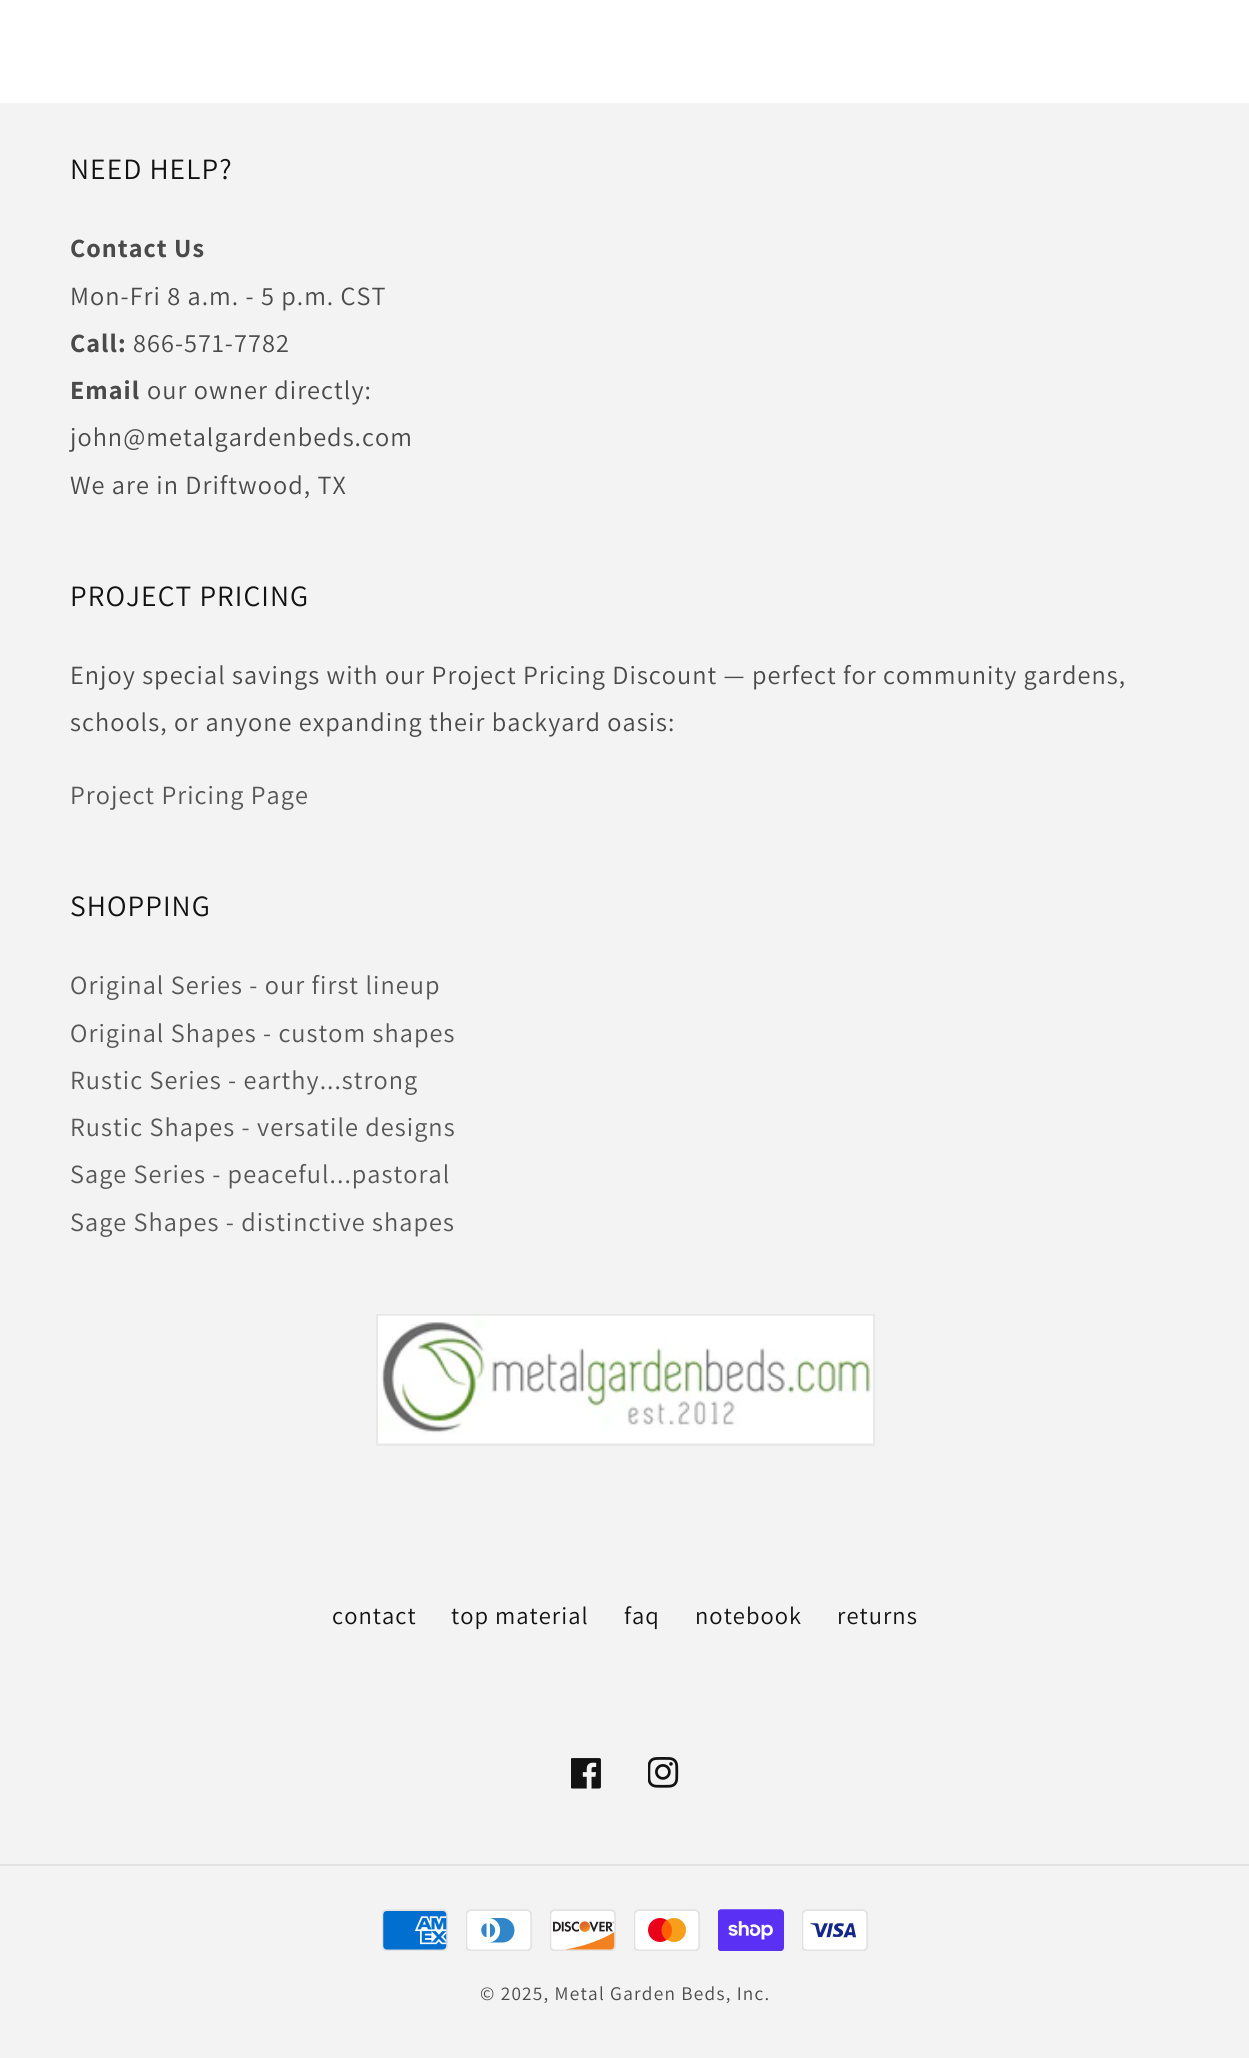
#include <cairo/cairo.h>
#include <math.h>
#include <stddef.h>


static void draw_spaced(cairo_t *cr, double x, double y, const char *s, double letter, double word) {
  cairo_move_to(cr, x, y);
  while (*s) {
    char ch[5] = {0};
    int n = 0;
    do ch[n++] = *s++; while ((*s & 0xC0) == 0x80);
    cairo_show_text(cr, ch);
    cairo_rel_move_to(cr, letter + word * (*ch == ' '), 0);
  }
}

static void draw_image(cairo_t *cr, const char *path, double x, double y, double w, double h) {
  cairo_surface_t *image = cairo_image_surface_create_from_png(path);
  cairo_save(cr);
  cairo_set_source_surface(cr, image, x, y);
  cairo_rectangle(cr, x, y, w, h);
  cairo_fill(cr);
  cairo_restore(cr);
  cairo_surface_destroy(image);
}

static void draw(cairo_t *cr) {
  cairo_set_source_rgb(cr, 1, 1, 1);
  cairo_paint(cr);
  cairo_set_source_rgb(cr, 243 / 255.0, 243 / 255.0, 243 / 255.0);
  cairo_rectangle(cr, 0, 103, 1249, 1955);
  cairo_fill(cr);
  cairo_rectangle(cr, 377, 1315, 497, 130);
  cairo_set_source_rgb(cr, 232 / 255.0, 232 / 255.0, 232 / 255.0);
  cairo_stroke(cr);
  draw_image(cr, "images/1.png", 378, 1315, 495, 128);
  draw_image(cr, "images/2.png", 571, 1758, 30, 31);
  draw_image(cr, "images/3.png", 648, 1757, 31, 31);
  cairo_set_source_rgb(cr, 225 / 255.0, 225 / 255.0, 225 / 255.0);
  cairo_rectangle(cr, 0, 1864, 1249, 2);
  cairo_fill(cr);
  draw_image(cr, "images/4.png", 382, 1909, 66, 42);
  draw_image(cr, "images/5.png", 466, 1909, 66, 42);
  draw_image(cr, "images/6.png", 550, 1909, 66, 42);
  draw_image(cr, "images/7.png", 634, 1909, 66, 42);
  draw_image(cr, "images/8.png", 718, 1909, 66, 42);
  draw_image(cr, "images/9.png", 802, 1909, 66, 42);
  cairo_select_font_face(cr, "Assistant", CAIRO_FONT_SLANT_NORMAL, CAIRO_FONT_WEIGHT_NORMAL);
  cairo_set_font_size(cr, 29.5);
  cairo_set_source_rgb(cr, 18 / 255.0, 18 / 255.0, 18 / 255.0);
  draw_spaced(cr, 70, 179, "NEED HELP?", 1.1, 0);
  cairo_select_font_face(cr, "Assistant", CAIRO_FONT_SLANT_NORMAL, CAIRO_FONT_WEIGHT_BOLD);
  cairo_set_font_size(cr, 26.25);
  cairo_set_source_rgb(cr, 74 / 255.0, 74 / 255.0, 74 / 255.0);
  draw_spaced(cr, 70, 257, "Contact Us", 1.05, 0);
  cairo_select_font_face(cr, "Assistant", CAIRO_FONT_SLANT_NORMAL, CAIRO_FONT_WEIGHT_NORMAL);
  draw_spaced(cr, 70, 305, "Mon-Fri 8 a.m. - 5 p.m. CST", 1.05, 0);
  cairo_select_font_face(cr, "Assistant", CAIRO_FONT_SLANT_NORMAL, CAIRO_FONT_WEIGHT_BOLD);
  draw_spaced(cr, 70, 352, "Call:", 1.05, 0);
  cairo_select_font_face(cr, "Assistant", CAIRO_FONT_SLANT_NORMAL, CAIRO_FONT_WEIGHT_NORMAL);
  draw_spaced(cr, 133, 352, "866-571-7782", 1.05, 0);
  cairo_select_font_face(cr, "Assistant", CAIRO_FONT_SLANT_NORMAL, CAIRO_FONT_WEIGHT_BOLD);
  draw_spaced(cr, 70, 399, "Email", 1.05, 0);
  cairo_select_font_face(cr, "Assistant", CAIRO_FONT_SLANT_NORMAL, CAIRO_FONT_WEIGHT_NORMAL);
  draw_spaced(cr, 147, 399, "our owner directly:", 1.05, 0);
  draw_spaced(cr, 70, 446, "john@metalgardenbeds.com", 1.05, 0);
  draw_spaced(cr, 70, 494, "We are in Driftwood, TX", 1.05, 0);
  cairo_set_font_size(cr, 29.5);
  cairo_set_source_rgb(cr, 18 / 255.0, 18 / 255.0, 18 / 255.0);
  draw_spaced(cr, 70, 606, "PROJECT PRICING", 1.1, 0);
  cairo_set_font_size(cr, 26.25);
  cairo_set_source_rgb(cr, 74 / 255.0, 74 / 255.0, 74 / 255.0);
  draw_spaced(cr, 70, 684, "Enjoy special savings with our Project Pricing Discount — perfect for community gardens,", 1.05, 0);
  draw_spaced(cr, 70, 731, "schools, or anyone expanding their backyard oasis:", 1.05, 0);
  cairo_set_source_rgb(cr, 86 / 255.0, 86 / 255.0, 86 / 255.0);
  draw_spaced(cr, 70, 804, "Project Pricing Page", 1.05, 0);
  cairo_set_font_size(cr, 29.5);
  cairo_set_source_rgb(cr, 18 / 255.0, 18 / 255.0, 18 / 255.0);
  draw_spaced(cr, 70, 916, "SHOPPING", 1.1, 0);
  cairo_set_font_size(cr, 26.25);
  cairo_set_source_rgb(cr, 86 / 255.0, 86 / 255.0, 86 / 255.0);
  draw_spaced(cr, 70, 994, "Original Series - our first lineup", 1.05, 0);
  draw_spaced(cr, 70, 1042, "Original Shapes - custom shapes", 1.05, 0);
  draw_spaced(cr, 70, 1089, "Rustic Series - earthy...strong", 1.05, 0);
  draw_spaced(cr, 70, 1136, "Rustic Shapes - versatile designs", 1.05, 0);
  draw_spaced(cr, 70, 1183, "Sage Series - peaceful...pastoral", 1.05, 0);
  draw_spaced(cr, 70, 1231, "Sage Shapes - distinctive shapes", 1.05, 0);
  cairo_set_font_size(cr, 24.5);
  cairo_set_source_rgb(cr, 18 / 255.0, 18 / 255.0, 18 / 255.0);
  draw_spaced(cr, 332, 1624, "contact", 1.05, 0);
  draw_spaced(cr, 451, 1624, "top material", 1.05, 0);
  draw_spaced(cr, 624, 1624, "faq", 1.05, 0);
  draw_spaced(cr, 695, 1624, "notebook", 1.05, 0);
  draw_spaced(cr, 837, 1624, "returns", 1.05, 0);
  cairo_set_font_size(cr, 19.25);
  cairo_set_source_rgb(cr, 74 / 255.0, 74 / 255.0, 74 / 255.0);
  draw_spaced(cr, 480, 2000, "© 2025, Metal Garden Beds, Inc.", 1.25, 0);
}

int main(void) {
  cairo_surface_t *surface = cairo_image_surface_create(CAIRO_FORMAT_RGB24, 1249, 2058);
  cairo_t *cr = cairo_create(surface);
  cairo_font_options_t *options = cairo_font_options_create();
  cairo_font_options_set_hint_metrics(options, CAIRO_HINT_METRICS_OFF);
  cairo_font_options_set_hint_style(options, CAIRO_HINT_STYLE_NONE);
  cairo_set_font_options(cr, options);
  cairo_set_miter_limit(cr, 4);
  draw(cr);
  cairo_surface_write_to_png(surface, "out.png");
  cairo_font_options_destroy(options);
  cairo_destroy(cr);
  cairo_surface_destroy(surface);
  return 0;
}
